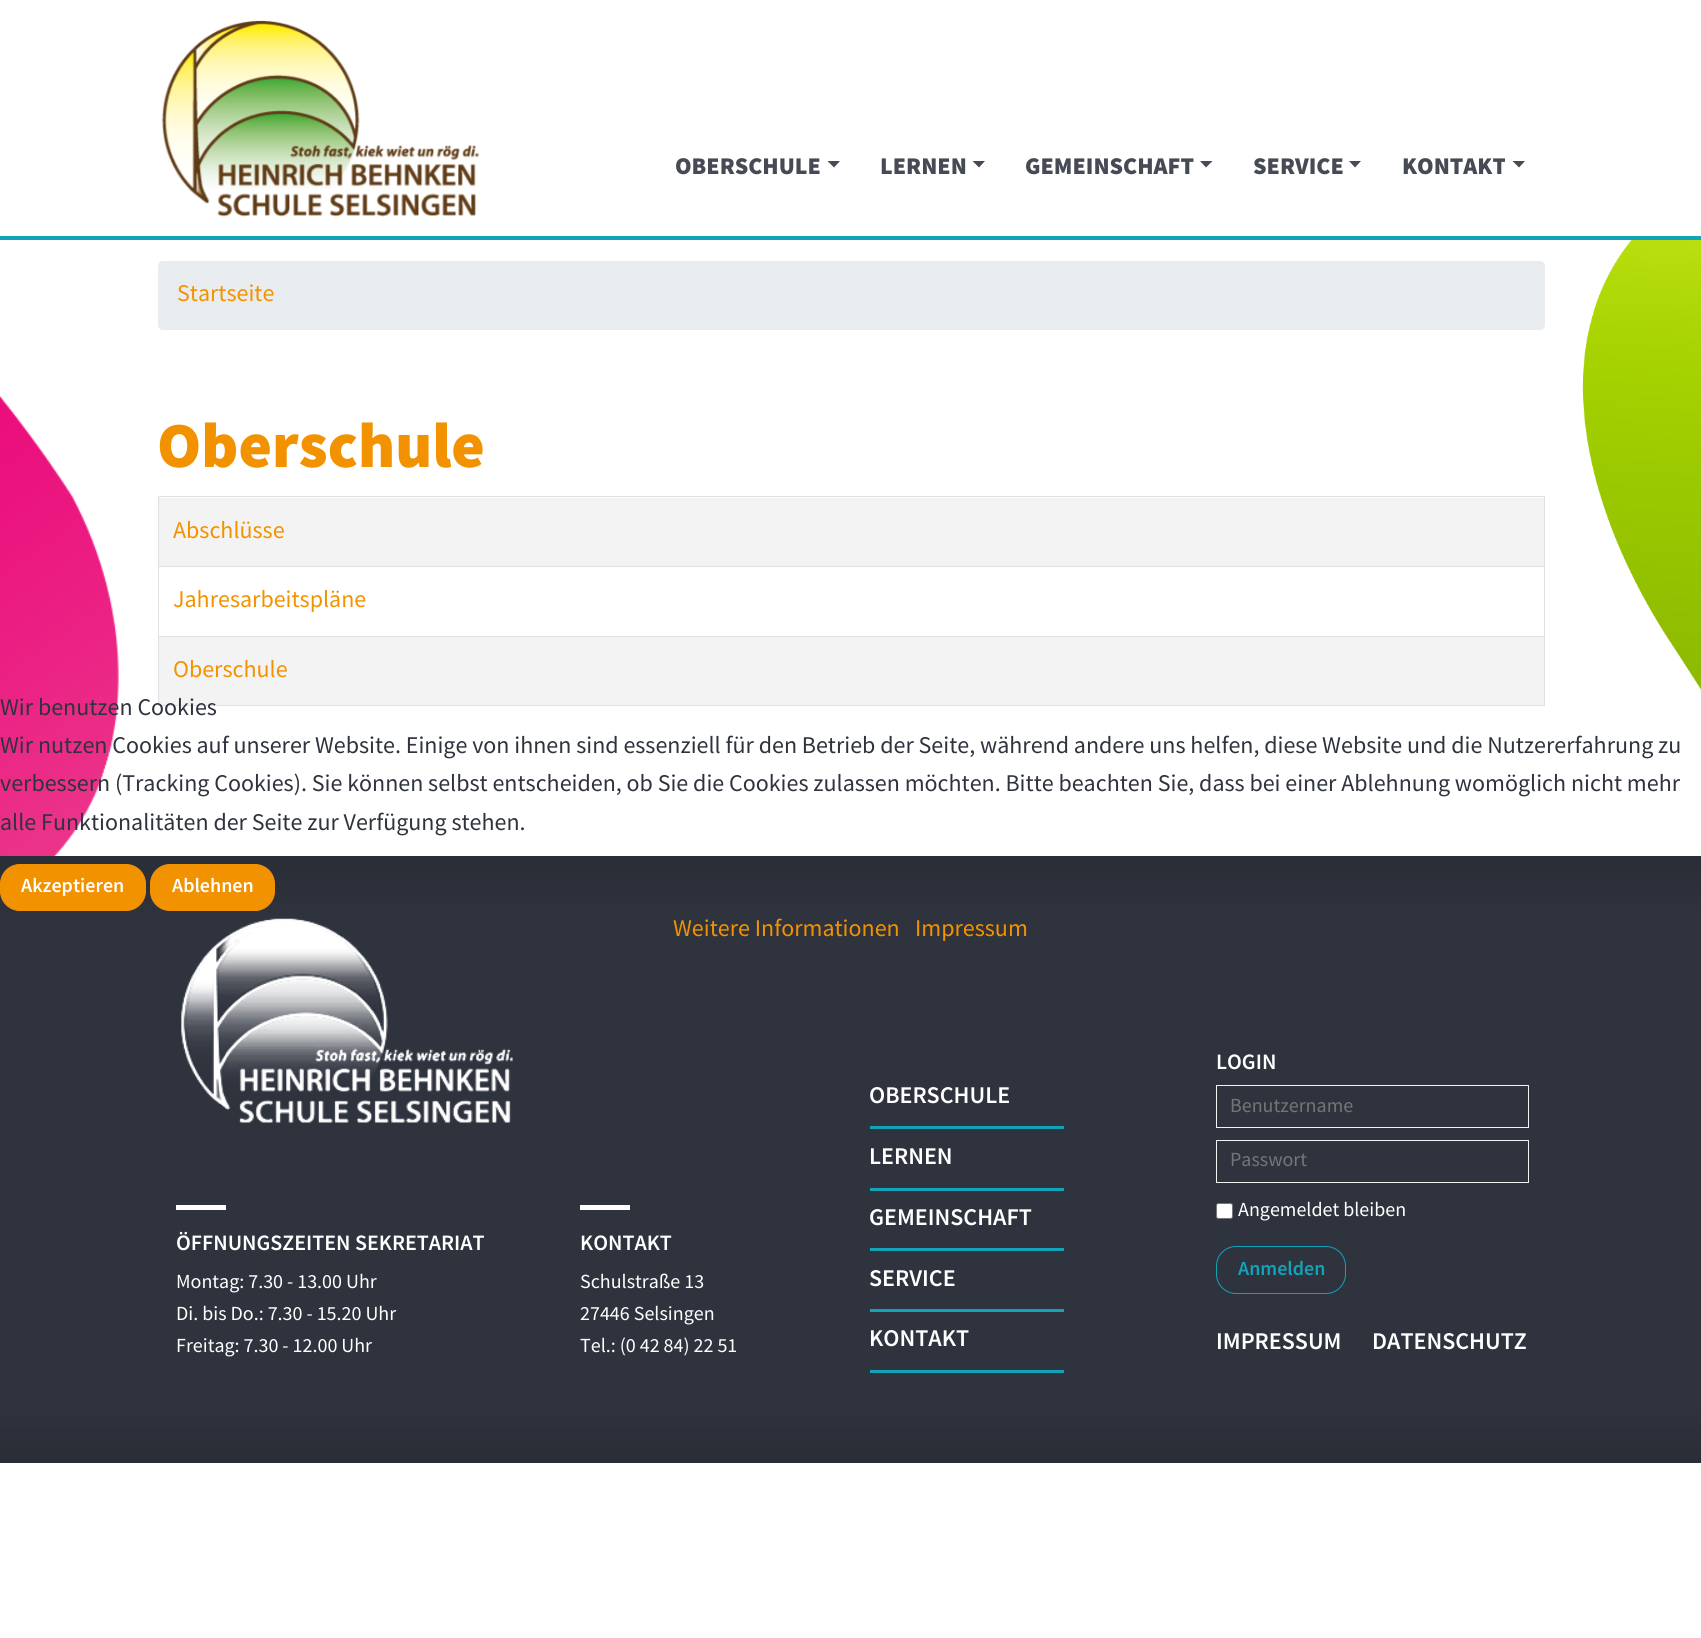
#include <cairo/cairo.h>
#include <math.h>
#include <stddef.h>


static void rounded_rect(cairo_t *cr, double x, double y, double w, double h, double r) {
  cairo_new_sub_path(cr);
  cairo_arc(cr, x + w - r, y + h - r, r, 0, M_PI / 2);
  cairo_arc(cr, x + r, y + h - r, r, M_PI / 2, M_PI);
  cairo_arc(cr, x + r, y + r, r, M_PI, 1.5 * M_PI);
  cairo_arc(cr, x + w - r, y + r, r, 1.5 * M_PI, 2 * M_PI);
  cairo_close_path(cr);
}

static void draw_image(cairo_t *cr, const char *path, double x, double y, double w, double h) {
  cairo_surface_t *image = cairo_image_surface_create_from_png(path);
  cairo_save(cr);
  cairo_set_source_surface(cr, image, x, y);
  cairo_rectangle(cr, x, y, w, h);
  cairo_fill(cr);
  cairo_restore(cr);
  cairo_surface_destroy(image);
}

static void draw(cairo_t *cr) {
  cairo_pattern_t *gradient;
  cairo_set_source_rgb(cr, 1, 1, 1);
  cairo_paint(cr);
  cairo_set_source_rgb(cr, 18 / 255.0, 163 / 255.0, 184 / 255.0);
  cairo_rectangle(cr, 0, 236, 1701, 4);
  cairo_fill(cr);
  draw_image(cr, "images/1.png", 161, 20, 319, 197);
  cairo_set_source_rgb(cr, 69 / 255.0, 74 / 255.0, 84 / 255.0);
  cairo_new_path(cr);
  cairo_move_to(cr, 827.5, 161);
  cairo_line_to(cr, 840, 161);
  cairo_line_to(cr, 834, 167.5);
  cairo_close_path(cr);
  cairo_fill(cr);
  cairo_new_path(cr);
  cairo_move_to(cr, 972.5, 161);
  cairo_line_to(cr, 985, 161);
  cairo_line_to(cr, 979, 167.5);
  cairo_close_path(cr);
  cairo_fill(cr);
  cairo_new_path(cr);
  cairo_move_to(cr, 1200, 161);
  cairo_line_to(cr, 1212.5, 161);
  cairo_line_to(cr, 1206, 167.5);
  cairo_close_path(cr);
  cairo_fill(cr);
  cairo_new_path(cr);
  cairo_move_to(cr, 1349, 161);
  cairo_line_to(cr, 1361, 161);
  cairo_line_to(cr, 1355, 167.5);
  cairo_close_path(cr);
  cairo_fill(cr);
  cairo_new_path(cr);
  cairo_move_to(cr, 1512.5, 161);
  cairo_line_to(cr, 1525, 161);
  cairo_line_to(cr, 1519, 167.5);
  cairo_close_path(cr);
  cairo_fill(cr);
  draw_image(cr, "images/2.png", 0, 396, 119, 460);
  cairo_set_source_rgb(cr, 233 / 255.0, 236 / 255.0, 239 / 255.0);
  rounded_rect(cr, 158, 261, 1387, 69, 5);
  cairo_fill(cr);
  cairo_set_source_rgb(cr, 222 / 255.0, 226 / 255.0, 230 / 255.0);
  cairo_rectangle(cr, 158, 496, 1387, 1);
  cairo_fill(cr);
  cairo_rectangle(cr, 1544, 496, 1, 210);
  cairo_fill(cr);
  cairo_rectangle(cr, 158, 705, 1387, 1);
  cairo_fill(cr);
  cairo_rectangle(cr, 158, 496, 1, 210);
  cairo_fill(cr);
  cairo_set_source_rgb(cr, 243 / 255.0, 243 / 255.0, 243 / 255.0);
  cairo_rectangle(cr, 159, 498, 1385, 68);
  cairo_fill(cr);
  cairo_set_source_rgb(cr, 222 / 255.0, 226 / 255.0, 230 / 255.0);
  cairo_rectangle(cr, 158, 566, 1387, 1);
  cairo_fill(cr);
  cairo_set_source_rgb(cr, 243 / 255.0, 243 / 255.0, 243 / 255.0);
  cairo_rectangle(cr, 159, 637, 1385, 68);
  cairo_fill(cr);
  cairo_set_source_rgb(cr, 222 / 255.0, 226 / 255.0, 230 / 255.0);
  cairo_rectangle(cr, 158, 636, 1387, 1);
  cairo_fill(cr);
  draw_image(cr, "images/3.png", 1582, 240, 119, 450);
  gradient = cairo_pattern_create_linear(851, 856, 851, 1463);
  cairo_pattern_add_color_stop_rgba(gradient, 0, 40 / 255.0, 45 / 255.0, 54 / 255.0, 1);
  cairo_pattern_add_color_stop_rgba(gradient, 0.1, 46 / 255.0, 51 / 255.0, 62 / 255.0, 1);
  cairo_pattern_add_color_stop_rgba(gradient, 0.9, 46 / 255.0, 51 / 255.0, 62 / 255.0, 1);
  cairo_pattern_add_color_stop_rgba(gradient, 1, 40 / 255.0, 45 / 255.0, 54 / 255.0, 1);
  cairo_set_source(cr, gradient);
  cairo_pattern_destroy(gradient);
  cairo_rectangle(cr, 0, 856, 1701, 607);
  cairo_fill(cr);
  cairo_set_source_rgb(cr, 243 / 255.0, 146 / 255.0, 0);
  rounded_rect(cr, 0.5, 864.5, 145, 46, 19.5);
  cairo_fill_preserve(cr);
  cairo_set_line_width(cr, 1);
  cairo_stroke(cr);
  rounded_rect(cr, 150.5, 864.5, 124, 46, 19.5);
  cairo_fill_preserve(cr);
  cairo_stroke(cr);
  draw_image(cr, "images/4.png", 181, 918, 332, 205);
  cairo_set_source_rgb(cr, 1, 1, 1);
  cairo_rectangle(cr, 176, 1205, 50, 5);
  cairo_fill(cr);
  cairo_rectangle(cr, 580, 1205, 50, 5);
  cairo_fill(cr);
  cairo_set_source_rgb(cr, 18 / 255.0, 163 / 255.0, 184 / 255.0);
  cairo_rectangle(cr, 870, 1126, 194, 3);
  cairo_fill(cr);
  cairo_rectangle(cr, 870, 1188, 194, 3);
  cairo_fill(cr);
  cairo_rectangle(cr, 870, 1248, 194, 3);
  cairo_fill(cr);
  cairo_rectangle(cr, 870, 1309, 194, 3);
  cairo_fill(cr);
  cairo_rectangle(cr, 870, 1370, 194, 3);
  cairo_fill(cr);
  cairo_rectangle(cr, 1216.5, 1085.5, 312, 42);
  cairo_set_source_rgb(cr, 243 / 255.0, 243 / 255.0, 244 / 255.0);
  cairo_stroke(cr);
  cairo_rectangle(cr, 1216.5, 1140.5, 312, 42);
  cairo_stroke(cr);
  cairo_set_source_rgb(cr, 1, 1, 1);
  rounded_rect(cr, 1216.5, 1203.5, 16, 15, 2);
  cairo_fill_preserve(cr);
  cairo_set_source_rgb(cr, 118 / 255.0, 118 / 255.0, 118 / 255.0);
  cairo_stroke(cr);
  rounded_rect(cr, 1216.5, 1246.5, 129, 47, 19.5);
  cairo_set_source_rgb(cr, 18 / 255.0, 163 / 255.0, 184 / 255.0);
  cairo_stroke(cr);
  cairo_select_font_face(cr, "Mada Black", CAIRO_FONT_SLANT_NORMAL, CAIRO_FONT_WEIGHT_NORMAL);
  cairo_set_font_size(cr, 24);
  cairo_set_source_rgb(cr, 69 / 255.0, 74 / 255.0, 84 / 255.0);
  cairo_move_to(cr, 675, 174);
  cairo_show_text(cr, "OBERSCHULE");
  cairo_move_to(cr, 880, 174);
  cairo_show_text(cr, "LERNEN");
  cairo_move_to(cr, 1025, 174);
  cairo_show_text(cr, "GEMEINSCHAFT");
  cairo_move_to(cr, 1253, 174);
  cairo_show_text(cr, "SERVICE");
  cairo_move_to(cr, 1402, 174);
  cairo_show_text(cr, "KONTAKT");
  cairo_select_font_face(cr, "Mada", CAIRO_FONT_SLANT_NORMAL, CAIRO_FONT_WEIGHT_NORMAL);
  cairo_set_source_rgb(cr, 243 / 255.0, 146 / 255.0, 0);
  cairo_move_to(cr, 177, 301);
  cairo_show_text(cr, "Startseite");
  cairo_select_font_face(cr, "Mada Black", CAIRO_FONT_SLANT_NORMAL, CAIRO_FONT_WEIGHT_NORMAL);
  cairo_set_font_size(cr, 64);
  cairo_move_to(cr, 157, 467);
  cairo_show_text(cr, "Oberschule");
  cairo_select_font_face(cr, "Mada", CAIRO_FONT_SLANT_NORMAL, CAIRO_FONT_WEIGHT_NORMAL);
  cairo_set_font_size(cr, 24);
  cairo_move_to(cr, 173, 538);
  cairo_show_text(cr, "Abschlüsse");
  cairo_move_to(cr, 173, 607);
  cairo_show_text(cr, "Jahresarbeitspläne");
  cairo_move_to(cr, 173, 677);
  cairo_show_text(cr, "Oberschule");
  cairo_set_source_rgb(cr, 46 / 255.0, 51 / 255.0, 62 / 255.0);
  cairo_move_to(cr, 0, 715);
  cairo_show_text(cr, "Wir benutzen Cookies");
  cairo_move_to(cr, 0, 753);
  cairo_show_text(cr, "Wir nutzen Cookies auf unserer Website. Einige von ihnen sind essenziell für den Betrieb der Seite, während andere uns helfen, diese Website und die Nutzererfahrung zu");
  cairo_move_to(cr, 0, 791);
  cairo_show_text(cr, "verbessern (Tracking Cookies). Sie können selbst entscheiden, ob Sie die Cookies zulassen möchten. Bitte beachten Sie, dass bei einer Ablehnung womöglich nicht mehr");
  cairo_move_to(cr, 0, 830);
  cairo_show_text(cr, "alle Funktionalitäten der Seite zur Verfügung stehen.");
  cairo_select_font_face(cr, "Mada SemiBold", CAIRO_FONT_SLANT_NORMAL, CAIRO_FONT_WEIGHT_NORMAL);
  cairo_set_font_size(cr, 20);
  cairo_set_source_rgb(cr, 1, 1, 1);
  cairo_move_to(cr, 21, 892);
  cairo_show_text(cr, "Akzeptieren");
  cairo_move_to(cr, 172, 892);
  cairo_show_text(cr, "Ablehnen");
  cairo_select_font_face(cr, "Mada", CAIRO_FONT_SLANT_NORMAL, CAIRO_FONT_WEIGHT_NORMAL);
  cairo_set_font_size(cr, 24);
  cairo_set_source_rgb(cr, 243 / 255.0, 146 / 255.0, 0);
  cairo_move_to(cr, 673, 936);
  cairo_show_text(cr, "Weitere Informationen");
  cairo_move_to(cr, 915, 936);
  cairo_show_text(cr, "Impressum");
  cairo_select_font_face(cr, "Mada SemiBold", CAIRO_FONT_SLANT_NORMAL, CAIRO_FONT_WEIGHT_NORMAL);
  cairo_set_font_size(cr, 22);
  cairo_set_source_rgb(cr, 1, 1, 1);
  cairo_move_to(cr, 176, 1250);
  cairo_show_text(cr, "ÖFFNUNGSZEITEN SEKRETARIAT");
  cairo_select_font_face(cr, "Mada", CAIRO_FONT_SLANT_NORMAL, CAIRO_FONT_WEIGHT_NORMAL);
  cairo_set_font_size(cr, 20);
  cairo_move_to(cr, 176, 1288);
  cairo_show_text(cr, "Montag: 7.30 - 13.00 Uhr");
  cairo_move_to(cr, 176, 1320);
  cairo_show_text(cr, "Di. bis Do.: 7.30 - 15.20 Uhr");
  cairo_move_to(cr, 176, 1352);
  cairo_show_text(cr, "Freitag: 7.30 - 12.00 Uhr");
  cairo_select_font_face(cr, "Mada SemiBold", CAIRO_FONT_SLANT_NORMAL, CAIRO_FONT_WEIGHT_NORMAL);
  cairo_set_font_size(cr, 22);
  cairo_move_to(cr, 580, 1250);
  cairo_show_text(cr, "KONTAKT");
  cairo_select_font_face(cr, "Mada", CAIRO_FONT_SLANT_NORMAL, CAIRO_FONT_WEIGHT_NORMAL);
  cairo_set_font_size(cr, 20);
  cairo_move_to(cr, 580, 1288);
  cairo_show_text(cr, "Schulstraße 13");
  cairo_move_to(cr, 580, 1320);
  cairo_show_text(cr, "27446 Selsingen");
  cairo_move_to(cr, 580, 1352);
  cairo_show_text(cr, "Tel.: (0 42 84) 22 51");
  cairo_select_font_face(cr, "Mada SemiBold", CAIRO_FONT_SLANT_NORMAL, CAIRO_FONT_WEIGHT_NORMAL);
  cairo_set_font_size(cr, 24);
  cairo_move_to(cr, 869, 1103);
  cairo_show_text(cr, "OBERSCHULE");
  cairo_move_to(cr, 869, 1164);
  cairo_show_text(cr, "LERNEN");
  cairo_move_to(cr, 869, 1225);
  cairo_show_text(cr, "GEMEINSCHAFT");
  cairo_move_to(cr, 869, 1286);
  cairo_show_text(cr, "SERVICE");
  cairo_move_to(cr, 869, 1346);
  cairo_show_text(cr, "KONTAKT");
  cairo_set_font_size(cr, 22);
  cairo_move_to(cr, 1216, 1069);
  cairo_show_text(cr, "LOGIN");
  cairo_select_font_face(cr, "Mada", CAIRO_FONT_SLANT_NORMAL, CAIRO_FONT_WEIGHT_NORMAL);
  cairo_set_font_size(cr, 20);
  cairo_set_source_rgb(cr, 117 / 255.0, 117 / 255.0, 117 / 255.0);
  cairo_move_to(cr, 1230, 1112);
  cairo_show_text(cr, "Benutzername");
  cairo_move_to(cr, 1230, 1166);
  cairo_show_text(cr, "Passwort");
  cairo_set_source_rgb(cr, 1, 1, 1);
  cairo_move_to(cr, 1238, 1216);
  cairo_show_text(cr, "Angemeldet bleiben");
  cairo_select_font_face(cr, "Mada SemiBold", CAIRO_FONT_SLANT_NORMAL, CAIRO_FONT_WEIGHT_NORMAL);
  cairo_set_source_rgb(cr, 18 / 255.0, 163 / 255.0, 184 / 255.0);
  cairo_move_to(cr, 1238, 1275);
  cairo_show_text(cr, "Anmelden");
  cairo_set_font_size(cr, 24);
  cairo_set_source_rgb(cr, 1, 1, 1);
  cairo_move_to(cr, 1216, 1349);
  cairo_show_text(cr, "IMPRESSUM");
  cairo_move_to(cr, 1372, 1349);
  cairo_show_text(cr, "DATENSCHUTZ");
}

int main(void) {
  cairo_surface_t *surface = cairo_image_surface_create(CAIRO_FORMAT_RGB24, 1701, 1638);
  cairo_t *cr = cairo_create(surface);
  cairo_font_options_t *options = cairo_font_options_create();
  cairo_font_options_set_hint_metrics(options, CAIRO_HINT_METRICS_OFF);
  cairo_font_options_set_hint_style(options, CAIRO_HINT_STYLE_NONE);
  cairo_set_font_options(cr, options);
  cairo_set_miter_limit(cr, 4);
  draw(cr);
  cairo_surface_write_to_png(surface, "out.png");
  cairo_font_options_destroy(options);
  cairo_destroy(cr);
  cairo_surface_destroy(surface);
  return 0;
}
